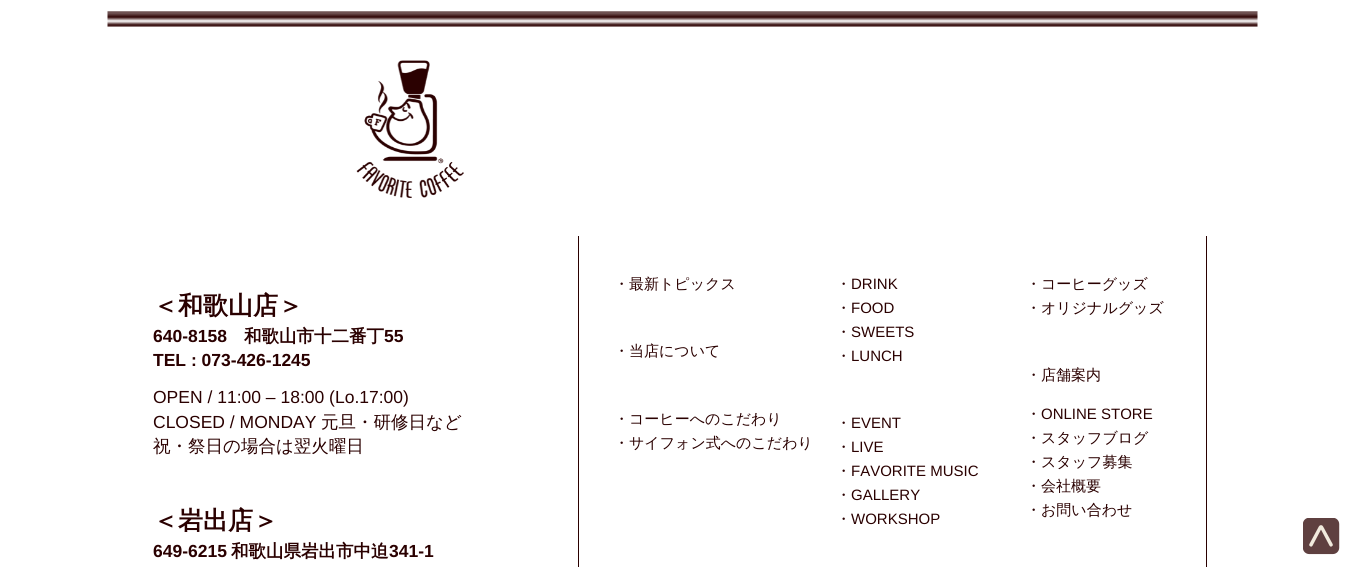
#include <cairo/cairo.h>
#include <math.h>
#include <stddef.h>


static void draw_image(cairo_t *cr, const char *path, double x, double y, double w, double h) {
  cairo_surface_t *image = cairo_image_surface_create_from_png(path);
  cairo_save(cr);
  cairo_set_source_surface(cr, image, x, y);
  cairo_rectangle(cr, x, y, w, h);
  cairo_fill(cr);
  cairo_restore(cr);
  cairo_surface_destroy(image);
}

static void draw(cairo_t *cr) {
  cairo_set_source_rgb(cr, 1, 1, 1);
  cairo_paint(cr);
  draw_image(cr, "images/1.png", 107, 11, 1151, 16);
  draw_image(cr, "images/2.png", 356, 60, 108, 138);
  cairo_set_source_rgb(cr, 42 / 255.0, 0, 0);
  cairo_rectangle(cr, 1206, 236, 1, 331);
  cairo_fill(cr);
  cairo_rectangle(cr, 578, 236, 1, 331);
  cairo_fill(cr);
  draw_image(cr, "images/3.png", 1303, 518, 37, 37);
  cairo_select_font_face(cr, "WenQuanYi Zen Hei", CAIRO_FONT_SLANT_NORMAL, CAIRO_FONT_WEIGHT_BOLD);
  cairo_set_font_size(cr, 25);
  cairo_move_to(cr, 153, 314);
  cairo_show_text(cr, "＜和歌山店＞");
  cairo_select_font_face(cr, "Liberation Sans", CAIRO_FONT_SLANT_NORMAL, CAIRO_FONT_WEIGHT_BOLD);
  cairo_set_font_size(cr, 17.5);
  cairo_move_to(cr, 153, 342);
  cairo_show_text(cr, "640-8158");
  cairo_select_font_face(cr, "WenQuanYi Zen Hei", CAIRO_FONT_SLANT_NORMAL, CAIRO_FONT_WEIGHT_BOLD);
  cairo_move_to(cr, 244, 342);
  cairo_show_text(cr, "和歌山市十二番丁");
  cairo_select_font_face(cr, "Liberation Sans", CAIRO_FONT_SLANT_NORMAL, CAIRO_FONT_WEIGHT_BOLD);
  cairo_move_to(cr, 384, 342);
  cairo_show_text(cr, "55");
  cairo_move_to(cr, 153, 366);
  cairo_show_text(cr, "TEL : 073-426-1245");
  cairo_select_font_face(cr, "Liberation Sans", CAIRO_FONT_SLANT_NORMAL, CAIRO_FONT_WEIGHT_NORMAL);
  cairo_move_to(cr, 153, 403);
  cairo_show_text(cr, "OPEN / 11:00 – 18:00 (Lo.17:00)");
  cairo_move_to(cr, 153, 428);
  cairo_show_text(cr, "CLOSED / MONDAY");
  cairo_select_font_face(cr, "WenQuanYi Zen Hei Medium", CAIRO_FONT_SLANT_NORMAL, CAIRO_FONT_WEIGHT_NORMAL);
  cairo_move_to(cr, 321, 428);
  cairo_show_text(cr, "元旦・研修日など");
  cairo_move_to(cr, 153, 452);
  cairo_show_text(cr, "祝・祭日の場合は翌火曜日");
  cairo_select_font_face(cr, "WenQuanYi Zen Hei", CAIRO_FONT_SLANT_NORMAL, CAIRO_FONT_WEIGHT_BOLD);
  cairo_set_font_size(cr, 25);
  cairo_move_to(cr, 153, 529);
  cairo_show_text(cr, "＜岩出店＞");
  cairo_select_font_face(cr, "Liberation Sans", CAIRO_FONT_SLANT_NORMAL, CAIRO_FONT_WEIGHT_BOLD);
  cairo_set_font_size(cr, 17.5);
  cairo_move_to(cr, 153, 557);
  cairo_show_text(cr, "649-6215");
  cairo_select_font_face(cr, "WenQuanYi Zen Hei", CAIRO_FONT_SLANT_NORMAL, CAIRO_FONT_WEIGHT_BOLD);
  cairo_move_to(cr, 231, 557);
  cairo_show_text(cr, "和歌山県岩出市中迫");
  cairo_select_font_face(cr, "Liberation Sans", CAIRO_FONT_SLANT_NORMAL, CAIRO_FONT_WEIGHT_BOLD);
  cairo_move_to(cr, 389, 557);
  cairo_show_text(cr, "341-1");
  cairo_select_font_face(cr, "WenQuanYi Zen Hei Medium", CAIRO_FONT_SLANT_NORMAL, CAIRO_FONT_WEIGHT_NORMAL);
  cairo_set_font_size(cr, 15);
  cairo_move_to(cr, 614, 289);
  cairo_show_text(cr, "・最新トピックス");
  cairo_move_to(cr, 614, 356);
  cairo_show_text(cr, "・当店について");
  cairo_move_to(cr, 614, 424);
  cairo_show_text(cr, "・コーヒーへのこだわり");
  cairo_move_to(cr, 614, 448);
  cairo_show_text(cr, "・サイフォン式へのこだわり");
  cairo_move_to(cr, 836, 289);
  cairo_show_text(cr, "・");
  cairo_select_font_face(cr, "Liberation Sans", CAIRO_FONT_SLANT_NORMAL, CAIRO_FONT_WEIGHT_NORMAL);
  cairo_move_to(cr, 851, 289);
  cairo_show_text(cr, "DRINK");
  cairo_select_font_face(cr, "WenQuanYi Zen Hei Medium", CAIRO_FONT_SLANT_NORMAL, CAIRO_FONT_WEIGHT_NORMAL);
  cairo_move_to(cr, 836, 313);
  cairo_show_text(cr, "・");
  cairo_select_font_face(cr, "Liberation Sans", CAIRO_FONT_SLANT_NORMAL, CAIRO_FONT_WEIGHT_NORMAL);
  cairo_move_to(cr, 851, 313);
  cairo_show_text(cr, "FOOD");
  cairo_select_font_face(cr, "WenQuanYi Zen Hei Medium", CAIRO_FONT_SLANT_NORMAL, CAIRO_FONT_WEIGHT_NORMAL);
  cairo_move_to(cr, 836, 337);
  cairo_show_text(cr, "・");
  cairo_select_font_face(cr, "Liberation Sans", CAIRO_FONT_SLANT_NORMAL, CAIRO_FONT_WEIGHT_NORMAL);
  cairo_move_to(cr, 851, 337);
  cairo_show_text(cr, "SWEETS");
  cairo_select_font_face(cr, "WenQuanYi Zen Hei Medium", CAIRO_FONT_SLANT_NORMAL, CAIRO_FONT_WEIGHT_NORMAL);
  cairo_move_to(cr, 836, 361);
  cairo_show_text(cr, "・");
  cairo_select_font_face(cr, "Liberation Sans", CAIRO_FONT_SLANT_NORMAL, CAIRO_FONT_WEIGHT_NORMAL);
  cairo_move_to(cr, 851, 361);
  cairo_show_text(cr, "LUNCH");
  cairo_select_font_face(cr, "WenQuanYi Zen Hei Medium", CAIRO_FONT_SLANT_NORMAL, CAIRO_FONT_WEIGHT_NORMAL);
  cairo_move_to(cr, 836, 428);
  cairo_show_text(cr, "・");
  cairo_select_font_face(cr, "Liberation Sans", CAIRO_FONT_SLANT_NORMAL, CAIRO_FONT_WEIGHT_NORMAL);
  cairo_move_to(cr, 851, 428);
  cairo_show_text(cr, "EVENT");
  cairo_select_font_face(cr, "WenQuanYi Zen Hei Medium", CAIRO_FONT_SLANT_NORMAL, CAIRO_FONT_WEIGHT_NORMAL);
  cairo_move_to(cr, 836, 452);
  cairo_show_text(cr, "・");
  cairo_select_font_face(cr, "Liberation Sans", CAIRO_FONT_SLANT_NORMAL, CAIRO_FONT_WEIGHT_NORMAL);
  cairo_move_to(cr, 851, 452);
  cairo_show_text(cr, "LIVE");
  cairo_select_font_face(cr, "WenQuanYi Zen Hei Medium", CAIRO_FONT_SLANT_NORMAL, CAIRO_FONT_WEIGHT_NORMAL);
  cairo_move_to(cr, 836, 476);
  cairo_show_text(cr, "・");
  cairo_select_font_face(cr, "Liberation Sans", CAIRO_FONT_SLANT_NORMAL, CAIRO_FONT_WEIGHT_NORMAL);
  cairo_move_to(cr, 851, 476);
  cairo_show_text(cr, "FAVORITE MUSIC");
  cairo_select_font_face(cr, "WenQuanYi Zen Hei Medium", CAIRO_FONT_SLANT_NORMAL, CAIRO_FONT_WEIGHT_NORMAL);
  cairo_move_to(cr, 836, 500);
  cairo_show_text(cr, "・");
  cairo_select_font_face(cr, "Liberation Sans", CAIRO_FONT_SLANT_NORMAL, CAIRO_FONT_WEIGHT_NORMAL);
  cairo_move_to(cr, 851, 500);
  cairo_show_text(cr, "GALLERY");
  cairo_select_font_face(cr, "WenQuanYi Zen Hei Medium", CAIRO_FONT_SLANT_NORMAL, CAIRO_FONT_WEIGHT_NORMAL);
  cairo_move_to(cr, 836, 524);
  cairo_show_text(cr, "・");
  cairo_select_font_face(cr, "Liberation Sans", CAIRO_FONT_SLANT_NORMAL, CAIRO_FONT_WEIGHT_NORMAL);
  cairo_move_to(cr, 851, 524);
  cairo_show_text(cr, "WORKSHOP");
  cairo_select_font_face(cr, "WenQuanYi Zen Hei Medium", CAIRO_FONT_SLANT_NORMAL, CAIRO_FONT_WEIGHT_NORMAL);
  cairo_move_to(cr, 1026, 289);
  cairo_show_text(cr, "・コーヒーグッズ");
  cairo_move_to(cr, 1026, 313);
  cairo_show_text(cr, "・オリジナルグッズ");
  cairo_move_to(cr, 1026, 380);
  cairo_show_text(cr, "・店舗案内");
  cairo_move_to(cr, 1026, 419);
  cairo_show_text(cr, "・");
  cairo_select_font_face(cr, "Liberation Sans", CAIRO_FONT_SLANT_NORMAL, CAIRO_FONT_WEIGHT_NORMAL);
  cairo_move_to(cr, 1041, 419);
  cairo_show_text(cr, "ONLINE STORE");
  cairo_select_font_face(cr, "WenQuanYi Zen Hei Medium", CAIRO_FONT_SLANT_NORMAL, CAIRO_FONT_WEIGHT_NORMAL);
  cairo_move_to(cr, 1026, 443);
  cairo_show_text(cr, "・スタッフブログ");
  cairo_move_to(cr, 1026, 467);
  cairo_show_text(cr, "・スタッフ募集");
  cairo_move_to(cr, 1026, 491);
  cairo_show_text(cr, "・会社概要");
  cairo_move_to(cr, 1026, 515);
  cairo_show_text(cr, "・お問い合わせ");
}

int main(void) {
  cairo_surface_t *surface = cairo_image_surface_create(CAIRO_FORMAT_RGB24, 1365, 567);
  cairo_t *cr = cairo_create(surface);
  cairo_font_options_t *options = cairo_font_options_create();
  cairo_font_options_set_hint_metrics(options, CAIRO_HINT_METRICS_OFF);
  cairo_font_options_set_hint_style(options, CAIRO_HINT_STYLE_NONE);
  cairo_set_font_options(cr, options);
  cairo_set_miter_limit(cr, 4);
  draw(cr);
  cairo_surface_write_to_png(surface, "out.png");
  cairo_font_options_destroy(options);
  cairo_destroy(cr);
  cairo_surface_destroy(surface);
  return 0;
}
